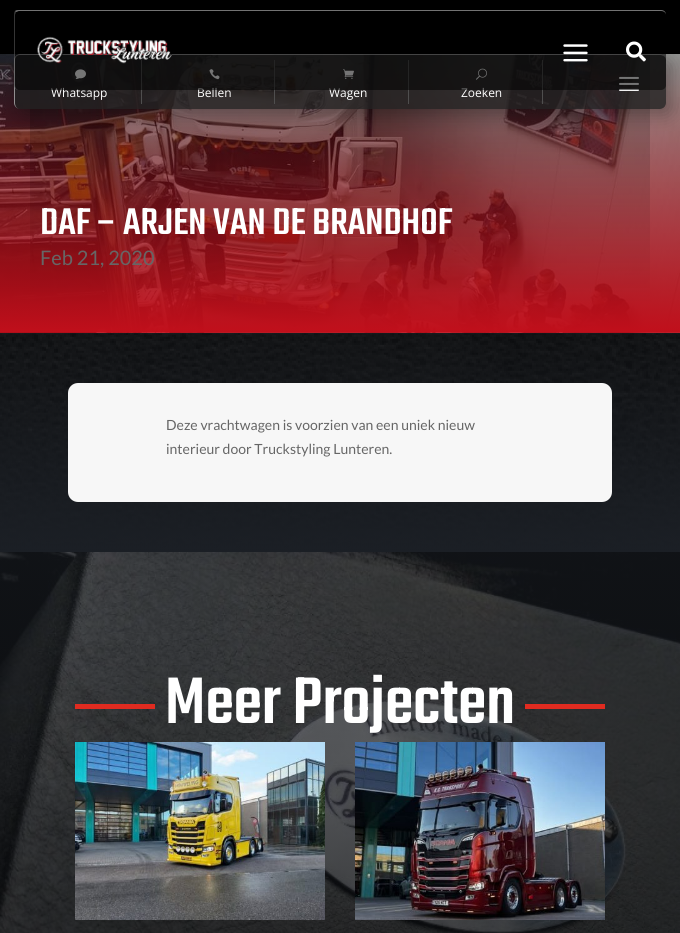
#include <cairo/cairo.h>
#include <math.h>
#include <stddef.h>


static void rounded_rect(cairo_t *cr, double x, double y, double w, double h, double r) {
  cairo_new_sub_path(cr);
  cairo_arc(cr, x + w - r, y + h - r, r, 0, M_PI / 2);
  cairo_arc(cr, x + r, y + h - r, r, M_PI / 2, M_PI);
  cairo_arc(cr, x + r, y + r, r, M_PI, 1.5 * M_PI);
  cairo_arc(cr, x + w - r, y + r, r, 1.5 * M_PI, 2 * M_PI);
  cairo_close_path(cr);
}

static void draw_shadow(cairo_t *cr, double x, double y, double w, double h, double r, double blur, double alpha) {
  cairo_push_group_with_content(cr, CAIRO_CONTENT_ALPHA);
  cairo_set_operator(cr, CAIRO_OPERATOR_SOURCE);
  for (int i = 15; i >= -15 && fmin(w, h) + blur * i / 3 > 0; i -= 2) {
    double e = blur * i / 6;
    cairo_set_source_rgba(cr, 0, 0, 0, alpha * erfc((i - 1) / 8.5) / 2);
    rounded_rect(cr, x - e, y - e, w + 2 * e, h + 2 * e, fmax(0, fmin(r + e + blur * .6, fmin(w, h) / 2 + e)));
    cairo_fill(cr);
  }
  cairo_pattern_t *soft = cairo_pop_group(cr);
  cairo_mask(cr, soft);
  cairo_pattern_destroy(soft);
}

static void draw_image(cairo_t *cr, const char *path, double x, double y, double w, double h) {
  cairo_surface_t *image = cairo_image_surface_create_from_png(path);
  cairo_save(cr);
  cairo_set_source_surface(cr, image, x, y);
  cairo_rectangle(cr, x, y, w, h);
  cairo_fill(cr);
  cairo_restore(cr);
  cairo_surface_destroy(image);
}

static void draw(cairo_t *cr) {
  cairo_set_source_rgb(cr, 0, 0, 0);
  cairo_paint(cr);
  draw_image(cr, "images/9.png", 0, 54, 680, 279);
  cairo_save(cr);
  cairo_set_fill_rule(cr, CAIRO_FILL_RULE_EVEN_ODD);
  cairo_new_path(cr);
  cairo_move_to(cr, 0, 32);
  cairo_line_to(cr, 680, 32);
  cairo_line_to(cr, 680, 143);
  cairo_line_to(cr, 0, 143);
  cairo_close_path(cr);
  cairo_move_to(cr, 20, 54);
  cairo_line_to(cr, 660, 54);
  cairo_curve_to(cr, 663.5, 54, 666, 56.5, 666, 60);
  cairo_line_to(cr, 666, 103);
  cairo_curve_to(cr, 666, 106.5, 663.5, 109, 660, 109);
  cairo_line_to(cr, 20, 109);
  cairo_curve_to(cr, 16.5, 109, 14, 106.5, 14, 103);
  cairo_line_to(cr, 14, 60);
  cairo_curve_to(cr, 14, 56.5, 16.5, 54, 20, 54);
  cairo_close_path(cr);
  cairo_clip(cr);
  draw_shadow(cr, 20, 60, 652, 55, 6, 9, 0.3);
  cairo_restore(cr);
  cairo_set_source_rgba(cr, 33 / 255.0, 33 / 255.0, 33 / 255.0, 0.8);
  rounded_rect(cr, 14, 54, 652, 55, 6);
  cairo_fill(cr);
  cairo_set_source_rgba(cr, 1, 1, 1, 0.5);
  cairo_set_fill_rule(cr, CAIRO_FILL_RULE_EVEN_ODD);
  cairo_new_path(cr);
  cairo_move_to(cr, 20, 54);
  cairo_line_to(cr, 660, 54);
  cairo_curve_to(cr, 663, 54, 666, 57, 666, 60);
  cairo_line_to(cr, 666, 103);
  cairo_curve_to(cr, 666, 106, 663, 109, 660, 109);
  cairo_line_to(cr, 20, 109);
  cairo_curve_to(cr, 17, 109, 14, 106, 14, 103);
  cairo_line_to(cr, 14, 60);
  cairo_curve_to(cr, 14, 57, 17, 54, 20, 54);
  cairo_close_path(cr);
  cairo_move_to(cr, 20, 55);
  cairo_line_to(cr, 660, 55);
  cairo_curve_to(cr, 663, 55, 666, 57, 666, 60);
  cairo_line_to(cr, 666, 103);
  cairo_curve_to(cr, 666, 106, 663, 109, 660, 109);
  cairo_line_to(cr, 20, 109);
  cairo_curve_to(cr, 17, 109, 15, 106, 15, 103);
  cairo_line_to(cr, 15, 60);
  cairo_curve_to(cr, 15, 57, 17, 55, 20, 55);
  cairo_close_path(cr);
  cairo_fill(cr);
  draw_image(cr, "images/4.png", 619, 76, 20, 15);
  cairo_set_source_rgb(cr, 79 / 255.0, 78 / 255.0, 78 / 255.0);
  cairo_rectangle(cr, 141, 60, 1, 44);
  cairo_fill(cr);
  draw_image(cr, "images/5.png", 75, 69, 11, 10);
  cairo_rectangle(cr, 274, 60, 1, 44);
  cairo_fill(cr);
  draw_image(cr, "images/6.png", 209, 69, 11, 11);
  cairo_rectangle(cr, 408, 60, 1, 44);
  cairo_fill(cr);
  draw_image(cr, "images/7.png", 343, 69, 11, 10);
  cairo_rectangle(cr, 542, 60, 1, 44);
  cairo_fill(cr);
  draw_image(cr, "images/8.png", 476, 68, 11, 12);
  draw_image(cr, "images/10.png", 0, 333, 680, 219);
  cairo_set_source_rgb(cr, 247 / 255.0, 247 / 255.0, 247 / 255.0);
  rounded_rect(cr, 68, 383, 544, 119, 10);
  cairo_fill(cr);
  draw_image(cr, "images/11.png", 0, 552, 680, 381);
  cairo_set_source_rgb(cr, 224 / 255.0, 43 / 255.0, 32 / 255.0);
  cairo_rectangle(cr, 75, 704, 80, 5);
  cairo_fill(cr);
  cairo_rectangle(cr, 525, 704, 80, 5);
  cairo_fill(cr);
  draw_image(cr, "images/12.png", 75, 742, 250, 178);
  draw_image(cr, "images/13.png", 355, 742, 250, 178);
  cairo_select_font_face(cr, "Open Sans", CAIRO_FONT_SLANT_NORMAL, CAIRO_FONT_WEIGHT_NORMAL);
  cairo_set_font_size(cr, 12);
  cairo_set_source_rgb(cr, 1, 1, 1);
  cairo_move_to(cr, 51, 97);
  cairo_show_text(cr, "Whatsapp");
  cairo_move_to(cr, 197, 97);
  cairo_show_text(cr, "Bellen");
  cairo_move_to(cr, 329, 97);
  cairo_show_text(cr, "Wagen");
  cairo_move_to(cr, 461, 97);
  cairo_show_text(cr, "Zoeken");
  cairo_set_source_rgba(cr, 0, 0, 0, 0.54);
  rounded_rect(cr, 14, 10, 652, 80, 5);
  cairo_fill(cr);
  draw_image(cr, "images/3.png", 626, 41, 20, 21);
  draw_image(cr, "images/2.png", 563, 44, 25, 18);
  draw_image(cr, "images/1.png", 37, 36, 135, 28);
  cairo_set_source_rgb(cr, 115 / 255.0, 115 / 255.0, 115 / 255.0);
  cairo_set_fill_rule(cr, CAIRO_FILL_RULE_WINDING);
  cairo_new_path(cr);
  cairo_move_to(cr, 19, 10);
  cairo_curve_to(cr, 18, 10, 16, 10, 15, 11);
  cairo_line_to(cr, 16, 12);
  cairo_curve_to(cr, 17, 12, 18, 11, 19, 11);
  cairo_line_to(cr, 661, 11);
  cairo_curve_to(cr, 664, 11, 666, 13, 666, 15);
  cairo_curve_to(cr, 666, 12, 664, 10, 661, 10);
  cairo_close_path(cr);
  cairo_fill(cr);
  cairo_set_source_rgba(cr, 1, 1, 1, 0.21);
  cairo_new_path(cr);
  cairo_move_to(cr, 14, 15);
  cairo_line_to(cr, 14, 85);
  cairo_curve_to(cr, 14, 88, 16, 90, 19, 90);
  cairo_curve_to(cr, 17, 90, 15, 88, 15, 85);
  cairo_line_to(cr, 15, 15);
  cairo_curve_to(cr, 15, 14, 16, 13, 16, 12);
  cairo_line_to(cr, 15, 11);
  cairo_curve_to(cr, 14, 12, 14, 14, 14, 15);
  cairo_close_path(cr);
  cairo_fill(cr);
  cairo_select_font_face(cr, "Teko Light", CAIRO_FONT_SLANT_NORMAL, CAIRO_FONT_WEIGHT_NORMAL);
  cairo_set_font_size(cr, 40.75);
  cairo_set_source_rgb(cr, 1, 1, 1);
  cairo_move_to(cr, 40, 234);
  cairo_show_text(cr, "DAF – ARJEN VAN DE BRANDHOF");
  cairo_select_font_face(cr, "Lato", CAIRO_FONT_SLANT_NORMAL, CAIRO_FONT_WEIGHT_NORMAL);
  cairo_set_font_size(cr, 20);
  cairo_set_source_rgb(cr, 102 / 255.0, 102 / 255.0, 102 / 255.0);
  cairo_move_to(cr, 40, 265);
  cairo_show_text(cr, "Feb 21, 2020");
  cairo_set_font_size(cr, 14);
  cairo_move_to(cr, 166, 430);
  cairo_show_text(cr, "Deze vrachtwagen is voorzien van een uniek nieuw");
  cairo_move_to(cr, 166, 454);
  cairo_show_text(cr, "interieur door Truckstyling Lunteren.");
  cairo_select_font_face(cr, "Teko Light", CAIRO_FONT_SLANT_NORMAL, CAIRO_FONT_WEIGHT_NORMAL);
  cairo_set_font_size(cr, 72);
  cairo_set_source_rgb(cr, 1, 1, 1);
  cairo_move_to(cr, 165, 723);
  cairo_show_text(cr, "Meer Projecten");
}

int main(void) {
  cairo_surface_t *surface = cairo_image_surface_create(CAIRO_FORMAT_RGB24, 680, 933);
  cairo_t *cr = cairo_create(surface);
  cairo_font_options_t *options = cairo_font_options_create();
  cairo_font_options_set_hint_metrics(options, CAIRO_HINT_METRICS_OFF);
  cairo_font_options_set_hint_style(options, CAIRO_HINT_STYLE_NONE);
  cairo_set_font_options(cr, options);
  cairo_set_miter_limit(cr, 4);
  draw(cr);
  cairo_surface_write_to_png(surface, "out.png");
  cairo_font_options_destroy(options);
  cairo_destroy(cr);
  cairo_surface_destroy(surface);
  return 0;
}
